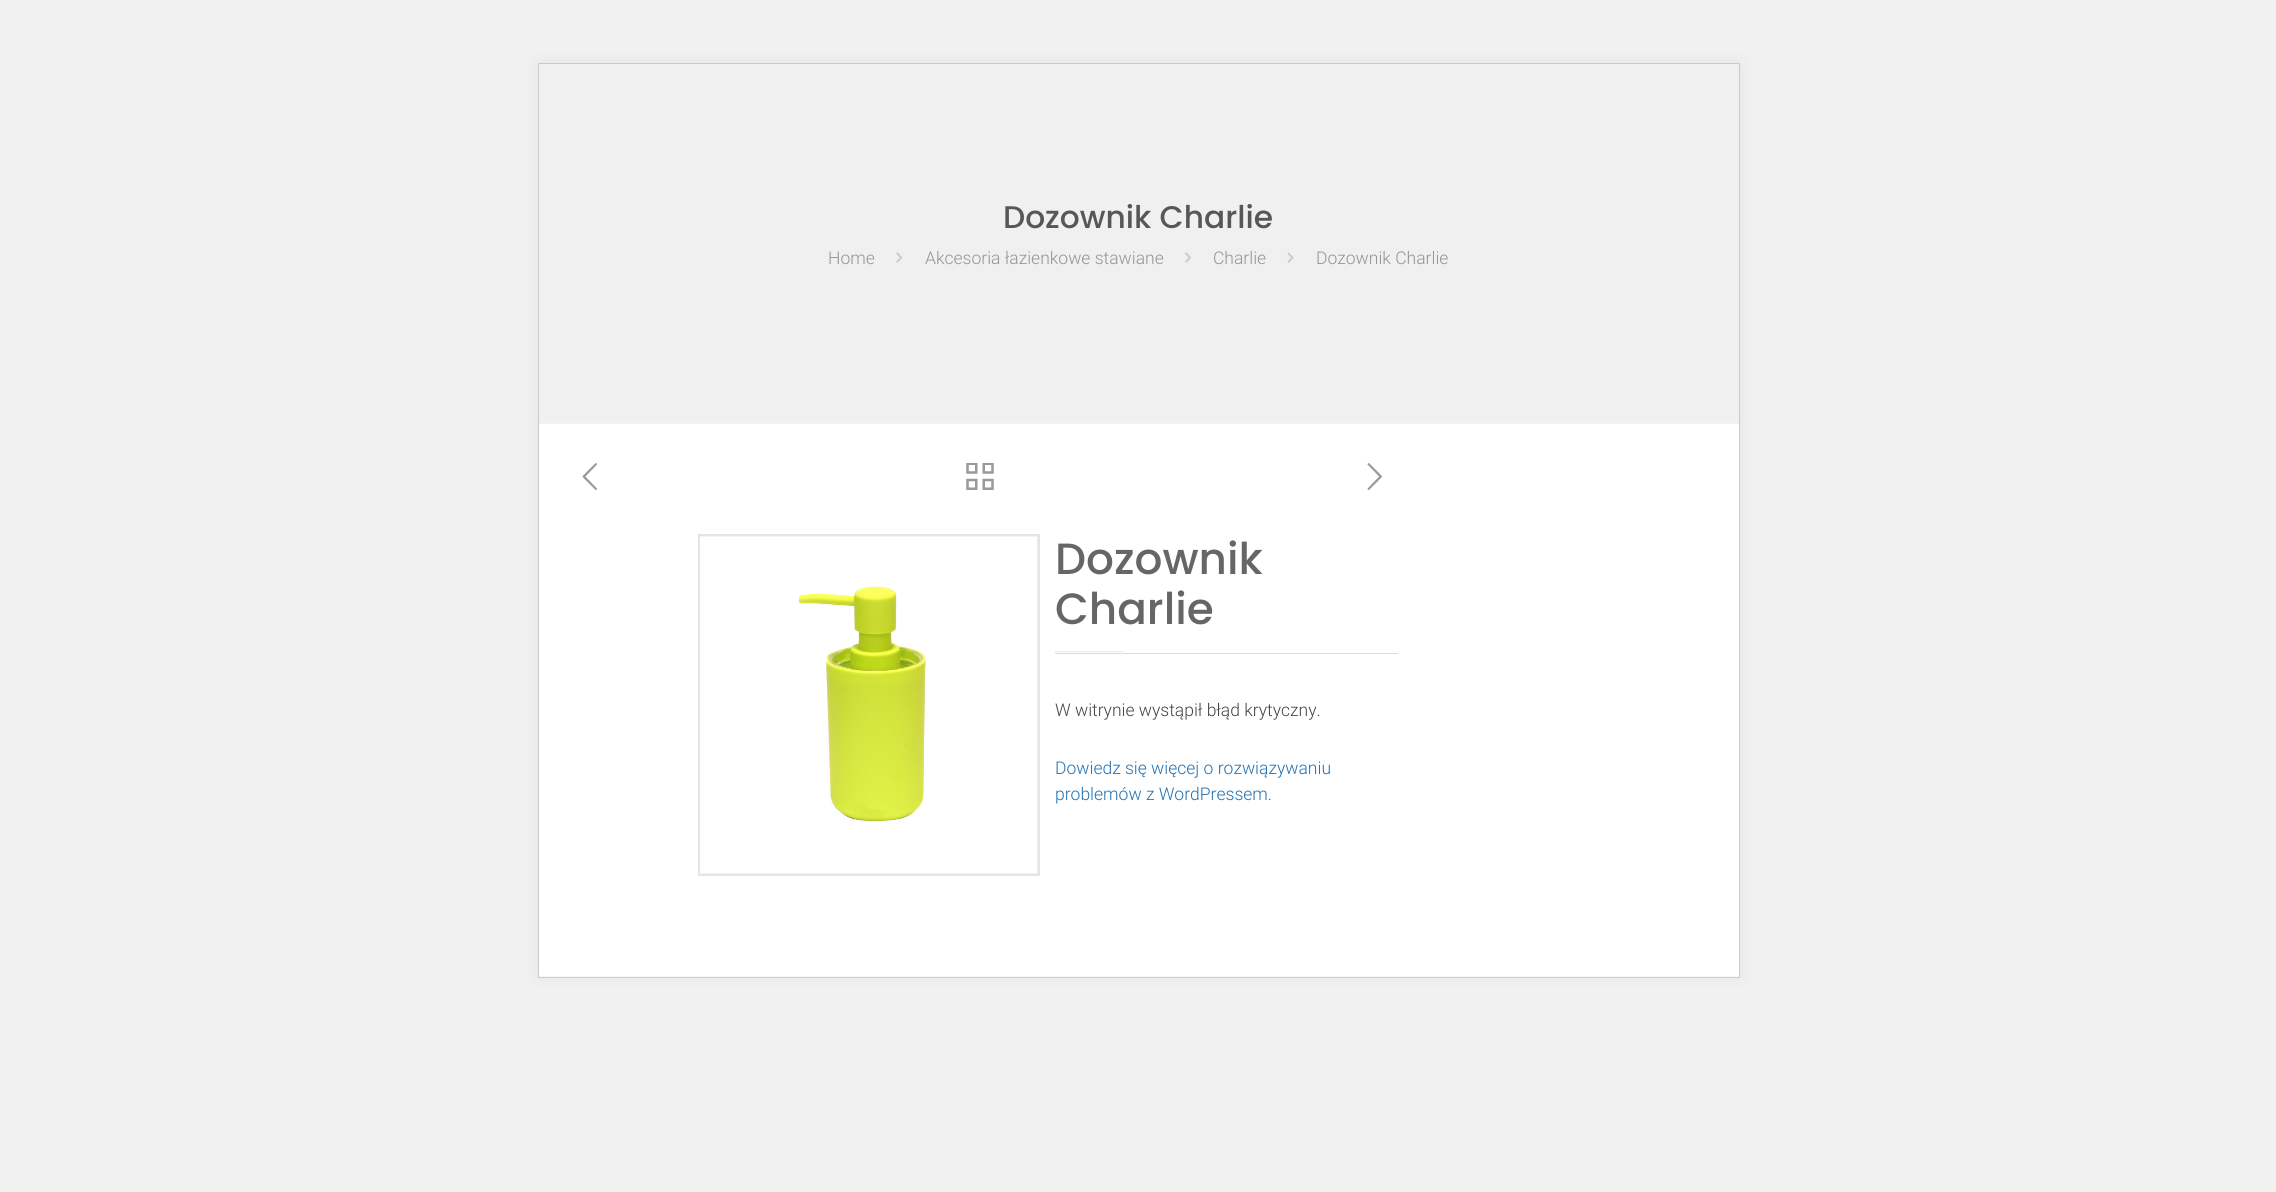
#include <cairo/cairo.h>
#include <math.h>
#include <stddef.h>


static void rounded_rect(cairo_t *cr, double x, double y, double w, double h, double r) {
  cairo_new_sub_path(cr);
  cairo_arc(cr, x + w - r, y + h - r, r, 0, M_PI / 2);
  cairo_arc(cr, x + r, y + h - r, r, M_PI / 2, M_PI);
  cairo_arc(cr, x + r, y + r, r, M_PI, 1.5 * M_PI);
  cairo_arc(cr, x + w - r, y + r, r, 1.5 * M_PI, 2 * M_PI);
  cairo_close_path(cr);
}

static void draw_shadow(cairo_t *cr, double x, double y, double w, double h, double r, double blur, double alpha) {
  cairo_push_group_with_content(cr, CAIRO_CONTENT_ALPHA);
  cairo_set_operator(cr, CAIRO_OPERATOR_SOURCE);
  for (int i = 15; i >= -15 && fmin(w, h) + blur * i / 3 > 0; i -= 2) {
    double e = blur * i / 6;
    cairo_set_source_rgba(cr, 0, 0, 0, alpha * erfc((i - 1) / 8.5) / 2);
    rounded_rect(cr, x - e, y - e, w + 2 * e, h + 2 * e, fmax(0, fmin(r + e + blur * .6, fmin(w, h) / 2 + e)));
    cairo_fill(cr);
  }
  cairo_pattern_t *soft = cairo_pop_group(cr);
  cairo_mask(cr, soft);
  cairo_pattern_destroy(soft);
}

static void draw_image(cairo_t *cr, const char *path, double x, double y, double w, double h) {
  cairo_surface_t *image = cairo_image_surface_create_from_png(path);
  cairo_save(cr);
  cairo_set_source_surface(cr, image, x, y);
  cairo_rectangle(cr, x, y, w, h);
  cairo_fill(cr);
  cairo_restore(cr);
  cairo_surface_destroy(image);
}

static void draw(cairo_t *cr) {
  cairo_set_source_rgb(cr, 241 / 255.0, 241 / 255.0, 241 / 255.0);
  cairo_paint(cr);
  cairo_set_source_rgb(cr, 1, 1, 1);
  cairo_rectangle(cr, 539, 976, 1200, 1);
  cairo_fill(cr);
  cairo_rectangle(cr, 538.5, 63.5, 1201, 914);
  cairo_set_source_rgb(cr, 204 / 255.0, 208 / 255.0, 212 / 255.0);
  cairo_set_line_width(cr, 1);
  cairo_stroke(cr);
  cairo_set_source_rgb(cr, 0, 0, 0);
  draw_shadow(cr, 539, 64, 1200, 912, 0, 9.5, 0.06);
  cairo_set_source_rgb(cr, 1, 1, 1);
  cairo_rectangle(cr, 539, 424, 1200, 552);
  cairo_fill(cr);
  cairo_set_source_rgb(cr, 240 / 255.0, 240 / 255.0, 240 / 255.0);
  cairo_rectangle(cr, 539, 64, 1200, 357);
  cairo_fill(cr);
  draw_image(cr, "images/1.png", 896, 252, 7, 11);
  draw_image(cr, "images/2.png", 1185, 252, 6, 11);
  draw_image(cr, "images/3.png", 1287, 252, 7, 11);
  cairo_set_source_rgb(cr, 242 / 255.0, 242 / 255.0, 242 / 255.0);
  cairo_rectangle(cr, 539, 421, 1200, 3);
  cairo_fill(cr);
  draw_image(cr, "images/4.png", 582, 463, 15, 27);
  draw_image(cr, "images/5.png", 966, 463, 28, 27);
  draw_image(cr, "images/6.png", 1367, 463, 15, 27);
  cairo_rectangle(cr, 699.5, 535.5, 339, 339);
  cairo_set_source_rgb(cr, 229 / 255.0, 229 / 255.0, 229 / 255.0);
  cairo_set_line_width(cr, 3);
  cairo_stroke(cr);
  draw_image(cr, "images/7.png", 700, 536, 338, 338);
  cairo_set_source_rgb(cr, 218 / 255.0, 218 / 255.0, 218 / 255.0);
  cairo_rectangle(cr, 1055, 653, 343, 1);
  cairo_fill(cr);
  cairo_set_source_rgb(cr, 235 / 255.0, 235 / 255.0, 235 / 255.0);
  cairo_rectangle(cr, 1055, 651, 69, 1);
  cairo_fill(cr);
  cairo_select_font_face(cr, "Poppins Medium", CAIRO_FONT_SLANT_NORMAL, CAIRO_FONT_WEIGHT_NORMAL);
  cairo_set_font_size(cr, 31.25);
  cairo_set_source_rgb(cr, 87 / 255.0, 87 / 255.0, 86 / 255.0);
  cairo_move_to(cr, 1003, 228);
  cairo_show_text(cr, "Dozownik Charlie");
  cairo_select_font_face(cr, "Roboto Light", CAIRO_FONT_SLANT_NORMAL, CAIRO_FONT_WEIGHT_NORMAL);
  cairo_set_font_size(cr, 17.5);
  cairo_set_source_rgb(cr, 148 / 255.0, 148 / 255.0, 148 / 255.0);
  cairo_move_to(cr, 828, 264);
  cairo_show_text(cr, "Home");
  cairo_move_to(cr, 925, 264);
  cairo_show_text(cr, "Akcesoria łazienkowe stawiane");
  cairo_move_to(cr, 1213, 264);
  cairo_show_text(cr, "Charlie");
  cairo_move_to(cr, 1316, 264);
  cairo_show_text(cr, "Dozownik Charlie");
  cairo_select_font_face(cr, "Poppins Medium", CAIRO_FONT_SLANT_NORMAL, CAIRO_FONT_WEIGHT_NORMAL);
  cairo_set_font_size(cr, 43.75);
  cairo_set_source_rgb(cr, 102 / 255.0, 102 / 255.0, 102 / 255.0);
  cairo_move_to(cr, 1055, 574);
  cairo_show_text(cr, "Dozownik");
  cairo_move_to(cr, 1055, 624);
  cairo_show_text(cr, "Charlie");
  cairo_select_font_face(cr, "Roboto Light", CAIRO_FONT_SLANT_NORMAL, CAIRO_FONT_WEIGHT_NORMAL);
  cairo_set_font_size(cr, 17.5);
  cairo_set_source_rgb(cr, 68 / 255.0, 68 / 255.0, 68 / 255.0);
  cairo_move_to(cr, 1055, 716);
  cairo_show_text(cr, "W witrynie wystąpił błąd krytyczny.");
  cairo_set_source_rgb(cr, 34 / 255.0, 113 / 255.0, 177 / 255.0);
  cairo_move_to(cr, 1055, 774);
  cairo_show_text(cr, "Dowiedz się więcej o rozwiązywaniu");
  cairo_move_to(cr, 1055, 800);
  cairo_show_text(cr, "problemów z WordPressem.");
}

int main(void) {
  cairo_surface_t *surface = cairo_image_surface_create(CAIRO_FORMAT_RGB24, 2276, 1192);
  cairo_t *cr = cairo_create(surface);
  cairo_font_options_t *options = cairo_font_options_create();
  cairo_font_options_set_hint_metrics(options, CAIRO_HINT_METRICS_OFF);
  cairo_font_options_set_hint_style(options, CAIRO_HINT_STYLE_NONE);
  cairo_set_font_options(cr, options);
  cairo_set_miter_limit(cr, 4);
  draw(cr);
  cairo_surface_write_to_png(surface, "out.png");
  cairo_font_options_destroy(options);
  cairo_destroy(cr);
  cairo_surface_destroy(surface);
  return 0;
}
